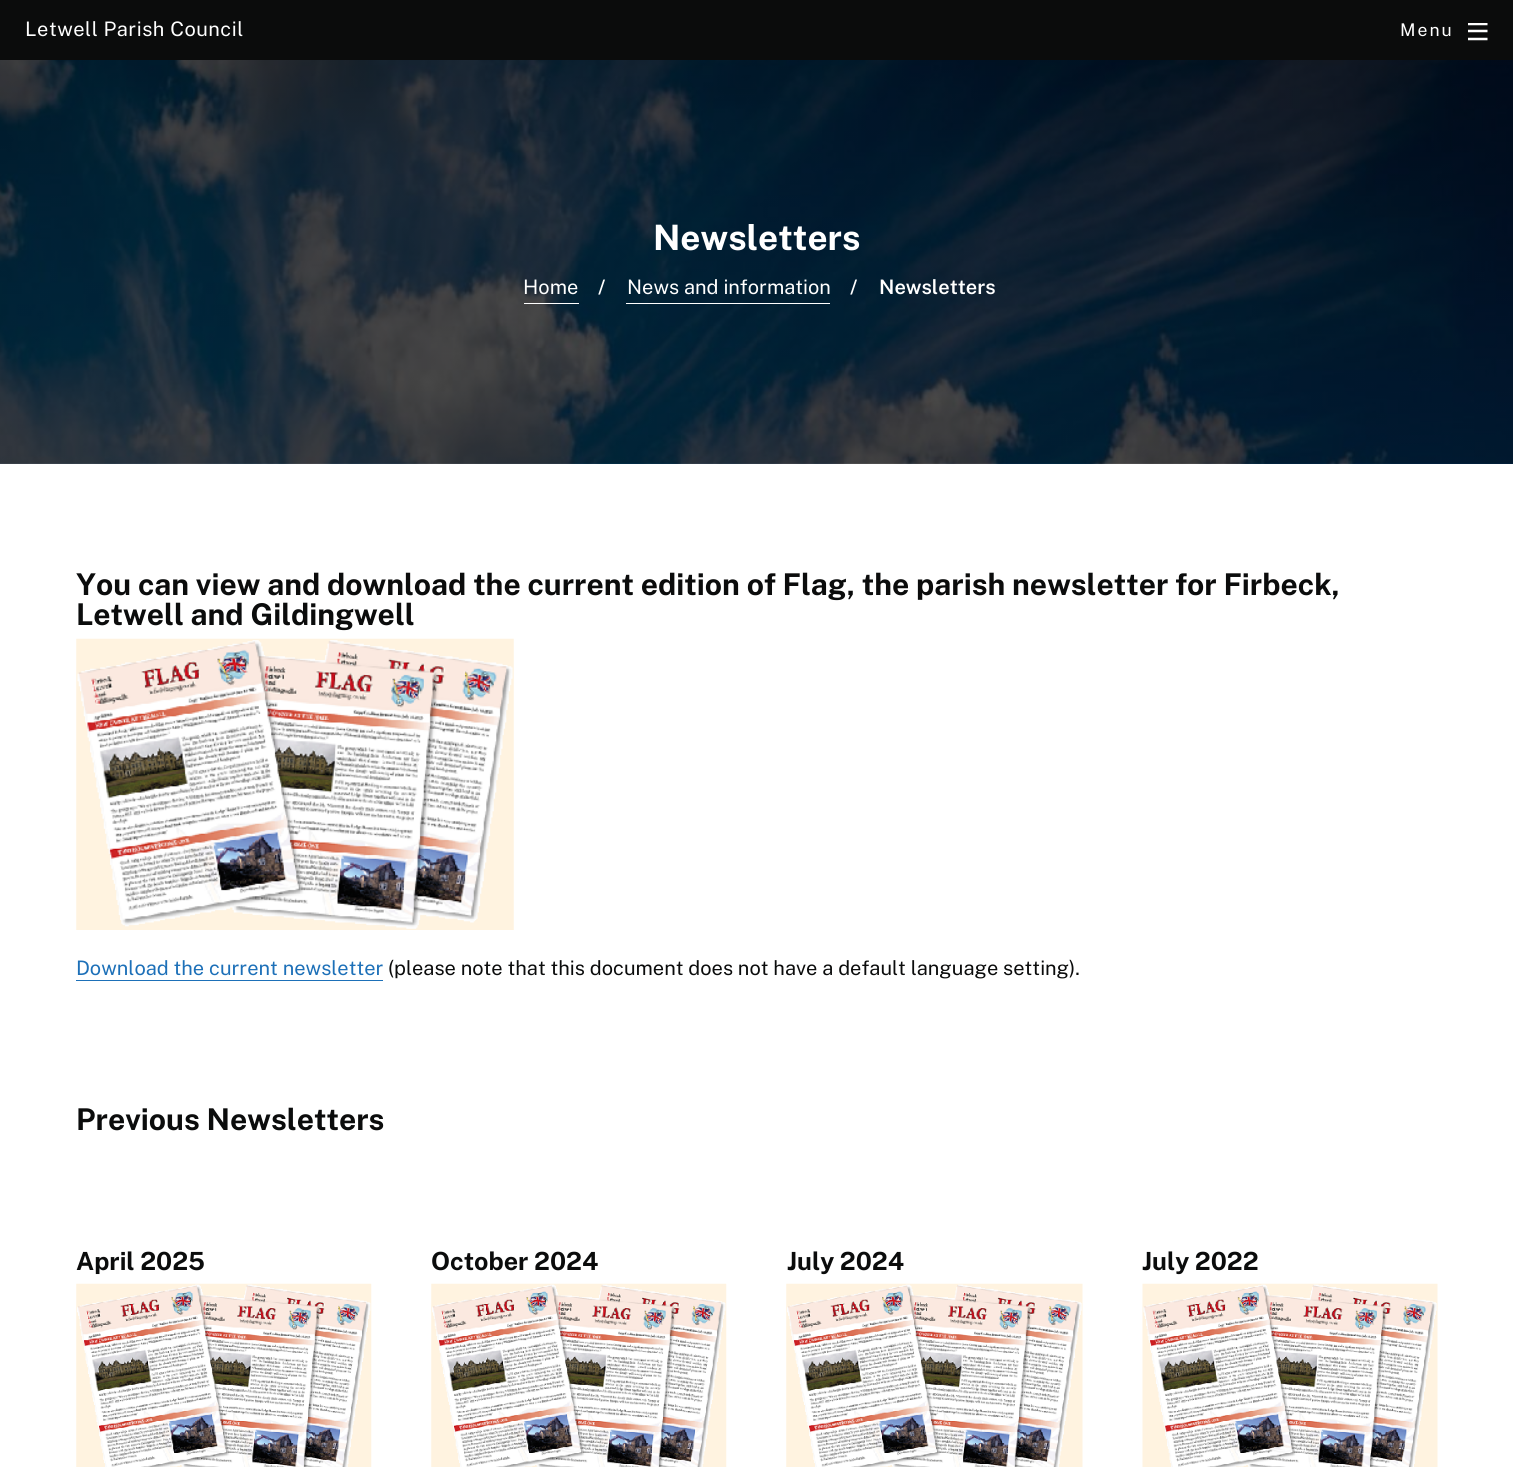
#include <cairo/cairo.h>
#include <math.h>
#include <stddef.h>


static void draw_spaced(cairo_t *cr, double x, double y, const char *s, double letter, double word) {
  cairo_move_to(cr, x, y);
  while (*s) {
    char ch[5] = {0};
    int n = 0;
    do ch[n++] = *s++; while ((*s & 0xC0) == 0x80);
    cairo_show_text(cr, ch);
    cairo_rel_move_to(cr, letter + word * (*ch == ' '), 0);
  }
}

static void draw_image(cairo_t *cr, const char *path, double x, double y, double w, double h) {
  cairo_surface_t *image = cairo_image_surface_create_from_png(path);
  cairo_save(cr);
  cairo_set_source_surface(cr, image, x, y);
  cairo_rectangle(cr, x, y, w, h);
  cairo_fill(cr);
  cairo_restore(cr);
  cairo_surface_destroy(image);
}

static void draw(cairo_t *cr) {
  cairo_set_source_rgb(cr, 11 / 255.0, 12 / 255.0, 12 / 255.0);
  cairo_paint(cr);
  cairo_save(cr);
  cairo_rectangle(cr, 1468, 23, 20, 20);
  cairo_clip(cr);
  cairo_new_path(cr);
  cairo_move_to(cr, 1467.5, 24);
  cairo_line_to(cr, 1487.5, 24);
  cairo_move_to(cr, 1467.5, 31);
  cairo_line_to(cr, 1487.5, 31);
  cairo_move_to(cr, 1467.5, 39);
  cairo_line_to(cr, 1487.5, 39);
  cairo_set_source_rgb(cr, 1, 1, 1);
  cairo_set_line_width(cr, 2.5);
  cairo_stroke(cr);
  cairo_restore(cr);
  draw_image(cr, "images/1.png", 0, 60, 1513, 404);
  cairo_set_source_rgb(cr, 1, 1, 1);
  cairo_rectangle(cr, 524, 303, 55, 1);
  cairo_fill(cr);
  cairo_rectangle(cr, 626, 303, 204, 1);
  cairo_fill(cr);
  cairo_rectangle(cr, 0, 464, 1513, 1003);
  cairo_fill(cr);
  draw_image(cr, "images/2.png", 76, 638, 438, 292);
  cairo_set_source_rgb(cr, 29 / 255.0, 112 / 255.0, 184 / 255.0);
  cairo_rectangle(cr, 76, 980, 307, 1);
  cairo_fill(cr);
  draw_image(cr, "images/3.png", 76, 1283, 296, 184);
  draw_image(cr, "images/4.png", 431, 1283, 296, 184);
  draw_image(cr, "images/5.png", 786, 1283, 297, 184);
  draw_image(cr, "images/6.png", 1142, 1283, 296, 184);
  cairo_select_font_face(cr, "Public Sans", CAIRO_FONT_SLANT_NORMAL, CAIRO_FONT_WEIGHT_NORMAL);
  cairo_set_font_size(cr, 20);
  cairo_set_source_rgb(cr, 1, 1, 1);
  draw_spaced(cr, 25, 36, "Letwell Parish Council", 0.5, 0);
  cairo_set_font_size(cr, 17.5);
  draw_spaced(cr, 1400, 36, "Menu", 2, 0);
  cairo_select_font_face(cr, "Public Sans", CAIRO_FONT_SLANT_NORMAL, CAIRO_FONT_WEIGHT_BOLD);
  cairo_set_font_size(cr, 35);
  cairo_move_to(cr, 653, 250);
  cairo_show_text(cr, "Newsletters");
  cairo_select_font_face(cr, "Public Sans", CAIRO_FONT_SLANT_NORMAL, CAIRO_FONT_WEIGHT_NORMAL);
  cairo_set_font_size(cr, 20);
  cairo_move_to(cr, 523, 294);
  cairo_show_text(cr, "Home");
  cairo_select_font_face(cr, "Public Sans SemiBold", CAIRO_FONT_SLANT_NORMAL, CAIRO_FONT_WEIGHT_NORMAL);
  cairo_move_to(cr, 598, 294);
  cairo_show_text(cr, "/");
  cairo_select_font_face(cr, "Public Sans", CAIRO_FONT_SLANT_NORMAL, CAIRO_FONT_WEIGHT_NORMAL);
  cairo_move_to(cr, 627, 294);
  cairo_show_text(cr, "News and information");
  cairo_select_font_face(cr, "Public Sans SemiBold", CAIRO_FONT_SLANT_NORMAL, CAIRO_FONT_WEIGHT_NORMAL);
  cairo_move_to(cr, 850, 294);
  cairo_show_text(cr, "/");
  cairo_move_to(cr, 879, 294);
  cairo_show_text(cr, "Newsletters");
  cairo_select_font_face(cr, "Public Sans", CAIRO_FONT_SLANT_NORMAL, CAIRO_FONT_WEIGHT_BOLD);
  cairo_set_font_size(cr, 30);
  cairo_set_source_rgb(cr, 11 / 255.0, 12 / 255.0, 12 / 255.0);
  cairo_move_to(cr, 76, 595);
  cairo_show_text(cr, "You can view and download the current edition of Flag, the parish newsletter for Firbeck,");
  cairo_move_to(cr, 76, 625);
  cairo_show_text(cr, "Letwell and Gildingwell");
  cairo_select_font_face(cr, "Public Sans", CAIRO_FONT_SLANT_NORMAL, CAIRO_FONT_WEIGHT_NORMAL);
  cairo_set_font_size(cr, 20);
  cairo_set_source_rgb(cr, 29 / 255.0, 112 / 255.0, 184 / 255.0);
  cairo_move_to(cr, 76, 975);
  cairo_show_text(cr, "Download the current newsletter");
  cairo_set_source_rgb(cr, 11 / 255.0, 12 / 255.0, 12 / 255.0);
  cairo_move_to(cr, 388, 975);
  cairo_show_text(cr, "(please note that this document does not have a default language setting).");
  cairo_select_font_face(cr, "Public Sans", CAIRO_FONT_SLANT_NORMAL, CAIRO_FONT_WEIGHT_BOLD);
  cairo_set_font_size(cr, 30);
  cairo_move_to(cr, 76, 1130);
  cairo_show_text(cr, "Previous Newsletters");
  cairo_set_font_size(cr, 25);
  cairo_move_to(cr, 76, 1270);
  cairo_show_text(cr, "April 2025");
  cairo_move_to(cr, 431, 1270);
  cairo_show_text(cr, "October 2024");
  cairo_move_to(cr, 787, 1270);
  cairo_show_text(cr, "July 2024");
  cairo_move_to(cr, 1142, 1270);
  cairo_show_text(cr, "July 2022");
}

int main(void) {
  cairo_surface_t *surface = cairo_image_surface_create(CAIRO_FORMAT_RGB24, 1513, 1467);
  cairo_t *cr = cairo_create(surface);
  cairo_font_options_t *options = cairo_font_options_create();
  cairo_font_options_set_hint_metrics(options, CAIRO_HINT_METRICS_OFF);
  cairo_font_options_set_hint_style(options, CAIRO_HINT_STYLE_NONE);
  cairo_set_font_options(cr, options);
  cairo_set_miter_limit(cr, 4);
  draw(cr);
  cairo_surface_write_to_png(surface, "out.png");
  cairo_font_options_destroy(options);
  cairo_destroy(cr);
  cairo_surface_destroy(surface);
  return 0;
}
